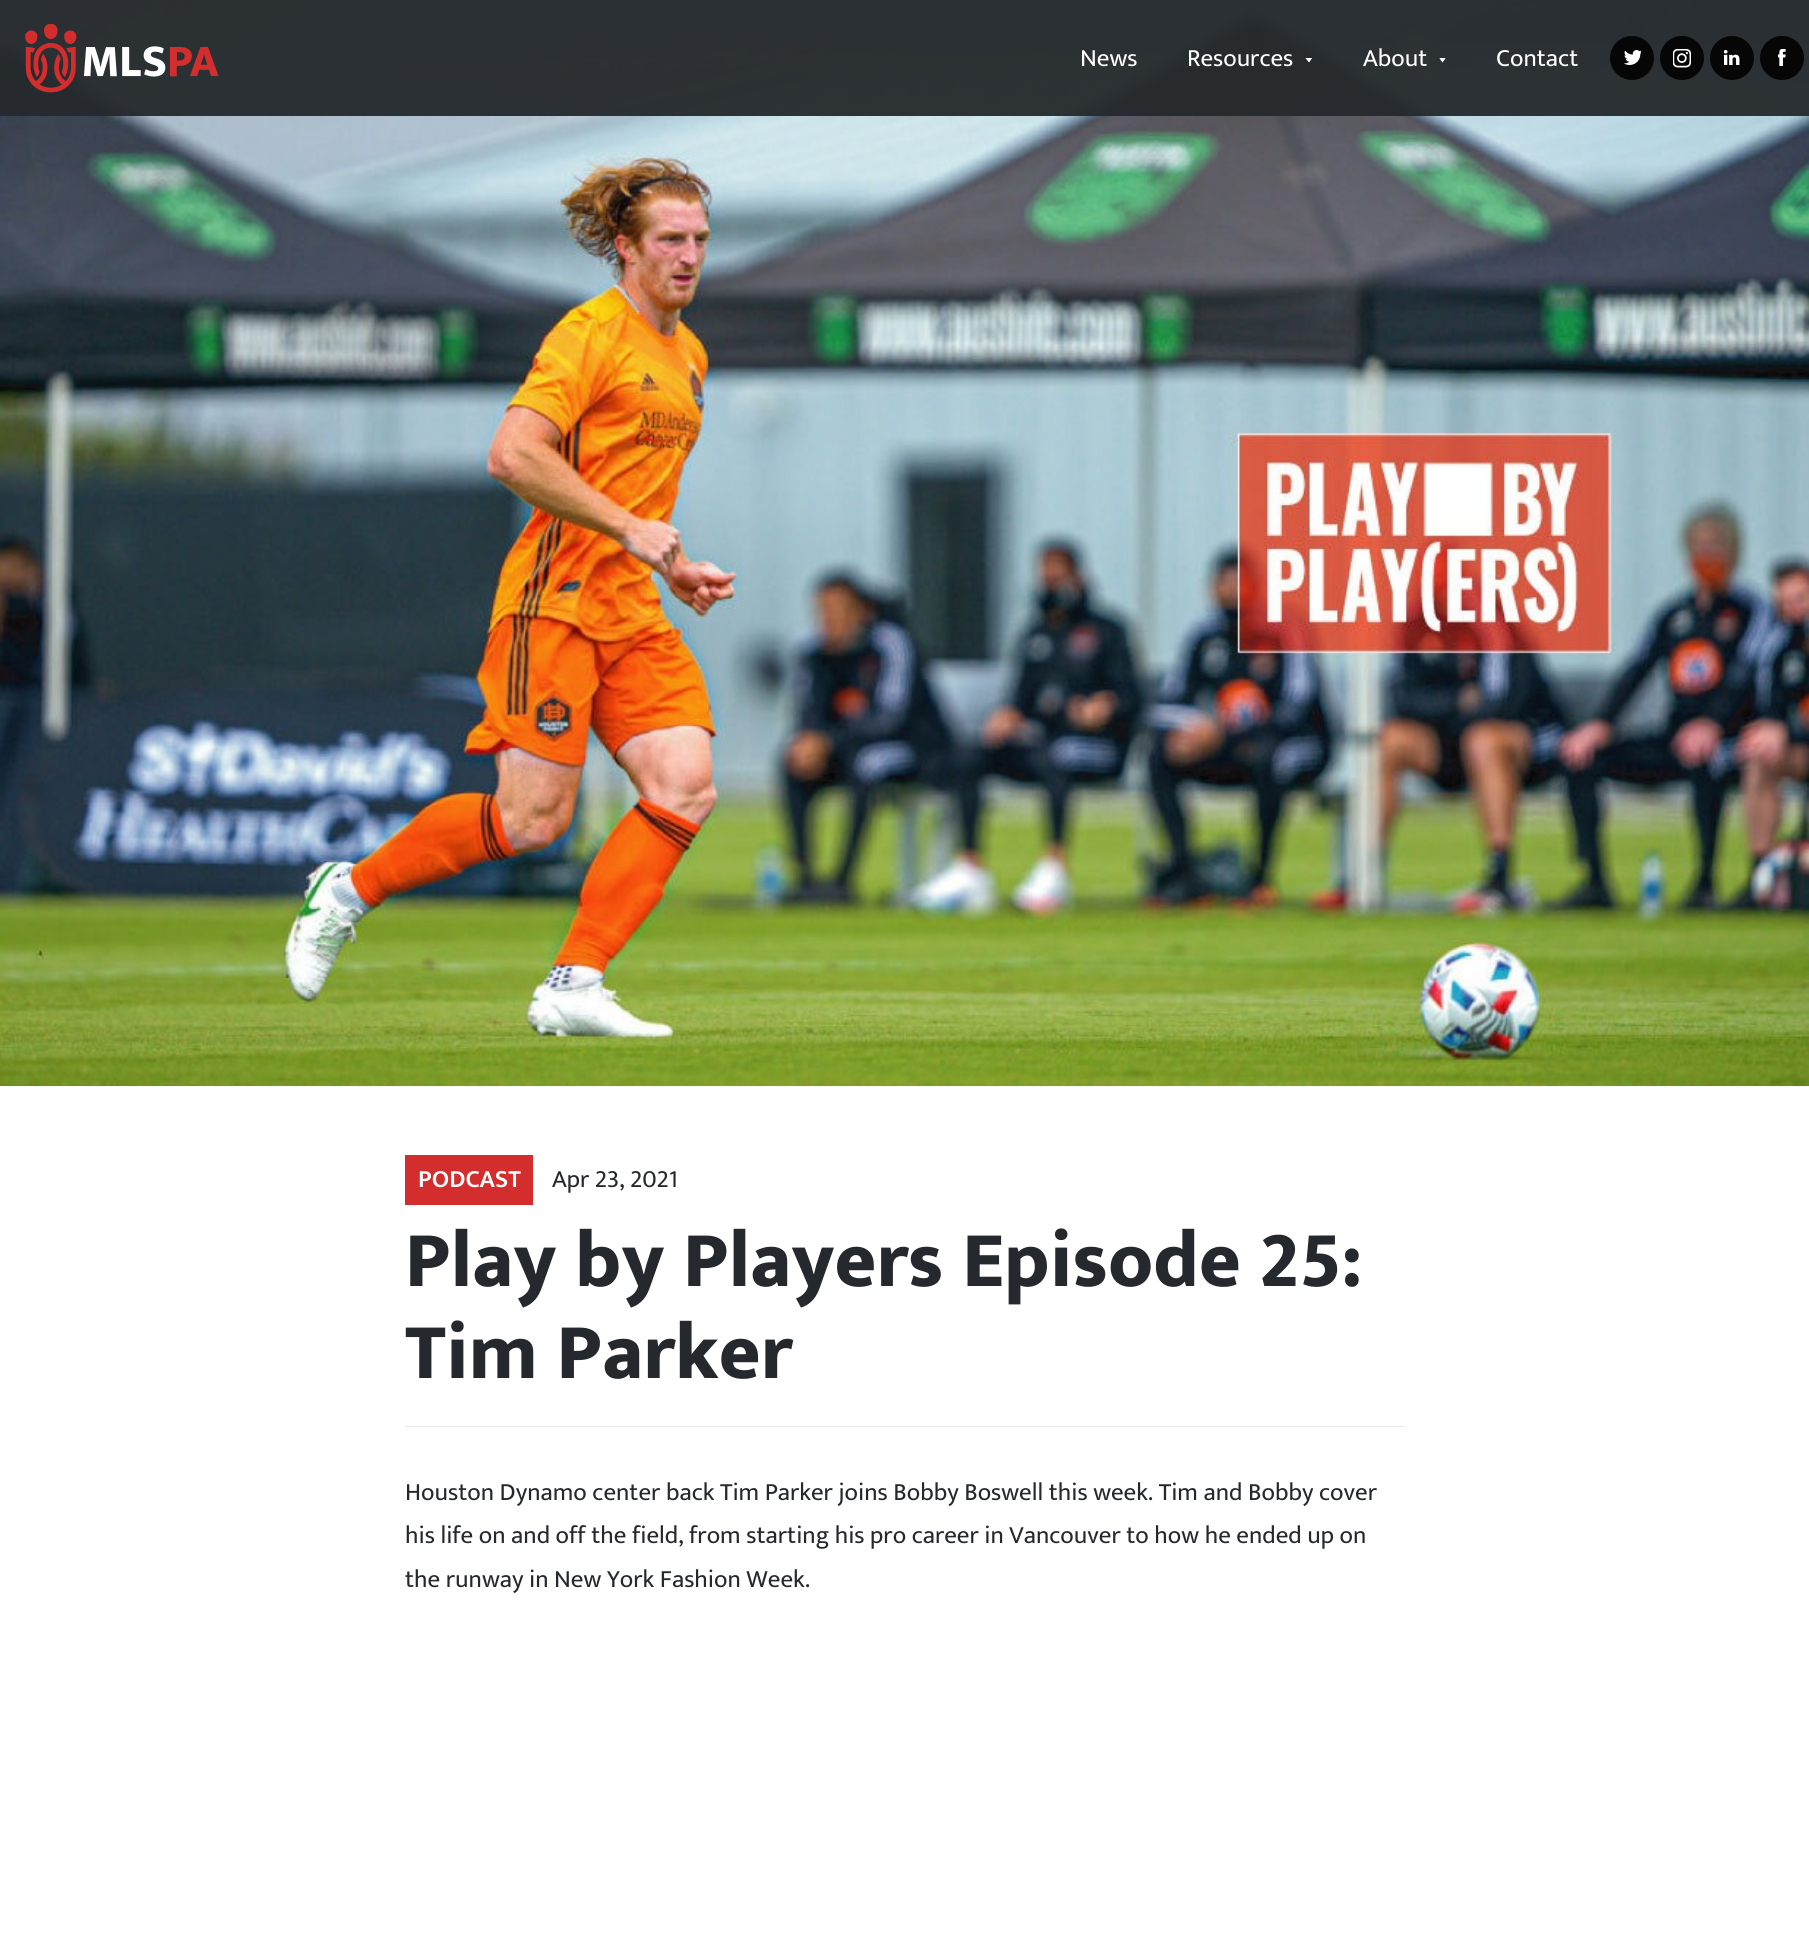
#include <cairo/cairo.h>
#include <math.h>
#include <stddef.h>


static void draw_image(cairo_t *cr, const char *path, double x, double y, double w, double h) {
  cairo_surface_t *image = cairo_image_surface_create_from_png(path);
  cairo_save(cr);
  cairo_set_source_surface(cr, image, x, y);
  cairo_rectangle(cr, x, y, w, h);
  cairo_fill(cr);
  cairo_restore(cr);
  cairo_surface_destroy(image);
}

static void draw(cairo_t *cr) {
  cairo_set_source_rgb(cr, 1, 1, 1);
  cairo_paint(cr);
  draw_image(cr, "images/6.png", 0, 0, 1809, 1087);
  cairo_set_source_rgba(cr, 37 / 255.0, 41 / 255.0, 45 / 255.0, 0.95);
  cairo_rectangle(cr, 0, 0, 1809, 116);
  cairo_fill(cr);
  draw_image(cr, "images/1.png", 25, 24, 194, 69);
  cairo_save(cr);
  cairo_rectangle(cr, 1305, 58, 8, 5);
  cairo_clip(cr);
  cairo_set_source_rgb(cr, 1, 1, 1);
  cairo_set_fill_rule(cr, CAIRO_FILL_RULE_EVEN_ODD);
  cairo_new_path(cr);
  cairo_move_to(cr, 1309, 62.5);
  cairo_line_to(cr, 1305, 57.5);
  cairo_line_to(cr, 1312.5, 57.5);
  cairo_close_path(cr);
  cairo_fill(cr);
  cairo_restore(cr);
  cairo_save(cr);
  cairo_rectangle(cr, 1439, 58, 7, 5);
  cairo_clip(cr);
  cairo_set_source_rgb(cr, 1, 1, 1);
  cairo_set_fill_rule(cr, CAIRO_FILL_RULE_EVEN_ODD);
  cairo_new_path(cr);
  cairo_move_to(cr, 1442.5, 62.5);
  cairo_line_to(cr, 1439, 57.5);
  cairo_line_to(cr, 1446, 57.5);
  cairo_close_path(cr);
  cairo_fill(cr);
  cairo_restore(cr);
  cairo_set_source_rgb(cr, 6 / 255.0, 6 / 255.0, 7 / 255.0);
  cairo_arc(cr, 1632, 58, 22, 0, 2 * M_PI);
  cairo_fill(cr);
  draw_image(cr, "images/2.png", 1624, 50, 17, 15);
  cairo_arc(cr, 1682, 58, 22, 0, 2 * M_PI);
  cairo_fill(cr);
  draw_image(cr, "images/3.png", 1673, 49, 18, 19);
  cairo_arc(cr, 1732, 58, 22, 0, 2 * M_PI);
  cairo_fill(cr);
  draw_image(cr, "images/4.png", 1724, 50, 16, 15);
  cairo_arc(cr, 1782, 58, 22, 0, 2 * M_PI);
  cairo_fill(cr);
  draw_image(cr, "images/5.png", 1778, 49, 8, 17);
  cairo_set_source_rgb(cr, 211 / 255.0, 45 / 255.0, 45 / 255.0);
  cairo_rectangle(cr, 405, 1155, 128, 50);
  cairo_fill(cr);
  cairo_set_source_rgb(cr, 232 / 255.0, 232 / 255.0, 232 / 255.0);
  cairo_rectangle(cr, 405, 1426, 1000, 1);
  cairo_fill(cr);
  cairo_select_font_face(cr, "Mukta", CAIRO_FONT_SLANT_NORMAL, CAIRO_FONT_WEIGHT_NORMAL);
  cairo_set_font_size(cr, 25);
  cairo_set_source_rgb(cr, 1, 1, 1);
  cairo_move_to(cr, 1080, 66);
  cairo_show_text(cr, "News");
  cairo_move_to(cr, 1187, 66);
  cairo_show_text(cr, "Resources");
  cairo_move_to(cr, 1363, 66);
  cairo_show_text(cr, "About");
  cairo_move_to(cr, 1496, 66);
  cairo_show_text(cr, "Contact");
  cairo_select_font_face(cr, "Mukta SemiBold", CAIRO_FONT_SLANT_NORMAL, CAIRO_FONT_WEIGHT_NORMAL);
  cairo_move_to(cr, 418, 1187);
  cairo_show_text(cr, "PODCAST");
  cairo_select_font_face(cr, "Mukta", CAIRO_FONT_SLANT_NORMAL, CAIRO_FONT_WEIGHT_NORMAL);
  cairo_set_source_rgb(cr, 37 / 255.0, 40 / 255.0, 45 / 255.0);
  cairo_move_to(cr, 552, 1187);
  cairo_show_text(cr, "Apr 23, 2021");
  cairo_select_font_face(cr, "Mukta ExtraBold", CAIRO_FONT_SLANT_NORMAL, CAIRO_FONT_WEIGHT_NORMAL);
  cairo_set_font_size(cr, 80);
  cairo_move_to(cr, 405, 1286);
  cairo_show_text(cr, "Play by Players Episode 25:");
  cairo_move_to(cr, 405, 1378);
  cairo_show_text(cr, "Tim Parker");
  cairo_select_font_face(cr, "Mukta", CAIRO_FONT_SLANT_NORMAL, CAIRO_FONT_WEIGHT_NORMAL);
  cairo_set_font_size(cr, 25);
  cairo_move_to(cr, 405, 1500);
  cairo_show_text(cr, "Houston Dynamo center back Tim Parker joins Bobby Boswell this week. Tim and Bobby cover");
  cairo_move_to(cr, 405, 1543);
  cairo_show_text(cr, "his life on and off the field, from starting his pro career in Vancouver to how he ended up on");
  cairo_move_to(cr, 405, 1587);
  cairo_show_text(cr, "the runway in New York Fashion Week.");
}

int main(void) {
  cairo_surface_t *surface = cairo_image_surface_create(CAIRO_FORMAT_RGB24, 1809, 1960);
  cairo_t *cr = cairo_create(surface);
  cairo_font_options_t *options = cairo_font_options_create();
  cairo_font_options_set_hint_metrics(options, CAIRO_HINT_METRICS_OFF);
  cairo_font_options_set_hint_style(options, CAIRO_HINT_STYLE_NONE);
  cairo_set_font_options(cr, options);
  cairo_set_miter_limit(cr, 4);
  draw(cr);
  cairo_surface_write_to_png(surface, "out.png");
  cairo_font_options_destroy(options);
  cairo_destroy(cr);
  cairo_surface_destroy(surface);
  return 0;
}
